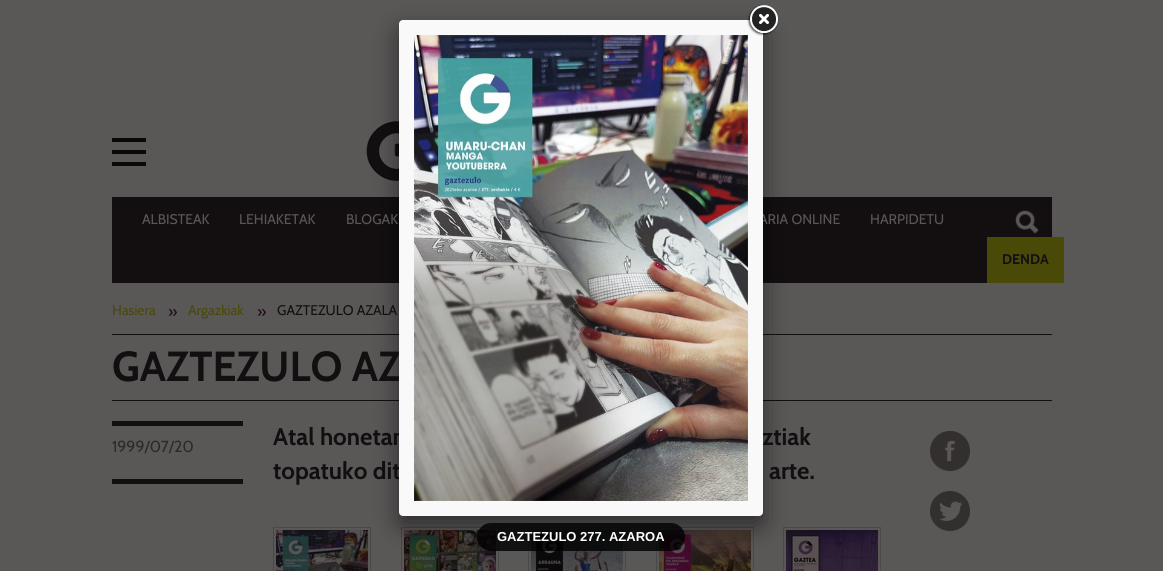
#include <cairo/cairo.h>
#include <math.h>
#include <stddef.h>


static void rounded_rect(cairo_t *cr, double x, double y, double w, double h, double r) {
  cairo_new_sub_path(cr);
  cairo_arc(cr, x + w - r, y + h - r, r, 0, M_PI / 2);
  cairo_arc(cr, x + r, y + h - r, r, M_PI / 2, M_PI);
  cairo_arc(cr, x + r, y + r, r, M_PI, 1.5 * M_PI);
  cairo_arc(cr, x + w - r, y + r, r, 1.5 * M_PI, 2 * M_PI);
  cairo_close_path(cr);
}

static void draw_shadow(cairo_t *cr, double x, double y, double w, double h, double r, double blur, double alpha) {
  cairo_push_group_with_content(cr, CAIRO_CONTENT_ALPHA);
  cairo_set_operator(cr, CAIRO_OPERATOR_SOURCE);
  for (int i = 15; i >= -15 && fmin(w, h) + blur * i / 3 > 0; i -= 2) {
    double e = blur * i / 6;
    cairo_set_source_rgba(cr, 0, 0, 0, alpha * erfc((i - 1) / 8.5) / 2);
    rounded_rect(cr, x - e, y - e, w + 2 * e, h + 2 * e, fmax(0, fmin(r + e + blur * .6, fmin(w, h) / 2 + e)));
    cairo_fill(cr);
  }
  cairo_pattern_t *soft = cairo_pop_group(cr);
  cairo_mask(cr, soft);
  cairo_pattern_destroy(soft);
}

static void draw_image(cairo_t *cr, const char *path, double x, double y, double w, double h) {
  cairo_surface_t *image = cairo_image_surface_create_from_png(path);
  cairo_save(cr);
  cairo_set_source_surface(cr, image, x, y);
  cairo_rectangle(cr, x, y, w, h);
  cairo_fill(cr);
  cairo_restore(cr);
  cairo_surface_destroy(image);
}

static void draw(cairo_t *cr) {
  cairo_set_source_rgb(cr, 90 / 255.0, 87 / 255.0, 87 / 255.0);
  cairo_paint(cr);
  draw_image(cr, "images/1.png", 112, 138, 34, 28);
  draw_image(cr, "images/2.png", 366, 121, 33, 60);
  cairo_set_source_rgb(cr, 19 / 255.0, 15 / 255.0, 17 / 255.0);
  cairo_rectangle(cr, 112, 197, 940, 86);
  cairo_fill(cr);
  draw_image(cr, "images/3.png", 1015, 210, 24, 24);
  cairo_set_source_rgb(cr, 73 / 255.0, 73 / 255.0, 8 / 255.0);
  cairo_rectangle(cr, 987, 237, 77, 46);
  cairo_fill(cr);
  cairo_set_source_rgb(cr, 19 / 255.0, 15 / 255.0, 17 / 255.0);
  cairo_rectangle(cr, 112, 334, 940, 1);
  cairo_fill(cr);
  cairo_rectangle(cr, 112, 400, 940, 1);
  cairo_fill(cr);
  cairo_rectangle(cr, 112, 421, 131, 5);
  cairo_fill(cr);
  cairo_rectangle(cr, 112, 479, 131, 5);
  cairo_fill(cr);
  cairo_rectangle(cr, 273.5, 527.5, 97, 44);
  cairo_set_source_rgb(cr, 74 / 255.0, 72 / 255.0, 72 / 255.0);
  cairo_set_line_width(cr, 1);
  cairo_stroke(cr);
  cairo_rectangle(cr, 401.5, 527.5, 97, 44);
  cairo_stroke(cr);
  cairo_rectangle(cr, 528.5, 527.5, 97, 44);
  cairo_stroke(cr);
  cairo_rectangle(cr, 656.5, 527.5, 97, 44);
  cairo_stroke(cr);
  cairo_rectangle(cr, 783.5, 527.5, 97, 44);
  cairo_stroke(cr);
  draw_image(cr, "images/4.png", 276, 530, 92, 41);
  draw_image(cr, "images/5.png", 404, 530, 92, 41);
  draw_image(cr, "images/6.png", 531, 530, 92, 41);
  draw_image(cr, "images/7.png", 659, 530, 92, 41);
  draw_image(cr, "images/8.png", 786, 530, 92, 41);
  draw_image(cr, "images/9.png", 930, 431, 40, 40);
  draw_image(cr, "images/10.png", 930, 491, 40, 40);
  cairo_set_source_rgb(cr, 0, 0, 0);
  draw_shadow(cr, 399, 30, 364, 496, 4, 12.5, 0.5);
  cairo_set_source_rgba(cr, 0, 0, 0, 0.8);
  rounded_rect(cr, 477, 523, 208, 28, 14);
  cairo_fill(cr);
  cairo_select_font_face(cr, "Cabin", CAIRO_FONT_SLANT_NORMAL, CAIRO_FONT_WEIGHT_NORMAL);
  cairo_set_font_size(cr, 14);
  cairo_set_source_rgb(cr, 90 / 255.0, 87 / 255.0, 87 / 255.0);
  cairo_move_to(cr, 142, 224);
  cairo_show_text(cr, "ALBISTEAK");
  cairo_move_to(cr, 239, 224);
  cairo_show_text(cr, "LEHIAKETAK");
  cairo_move_to(cr, 346, 224);
  cairo_show_text(cr, "BLOGAK");
  cairo_move_to(cr, 759, 224);
  cairo_show_text(cr, "ARIA ONLINE");
  cairo_move_to(cr, 870, 224);
  cairo_show_text(cr, "HARPIDETU");
  cairo_select_font_face(cr, "Cabin", CAIRO_FONT_SLANT_NORMAL, CAIRO_FONT_WEIGHT_BOLD);
  cairo_set_source_rgb(cr, 19 / 255.0, 15 / 255.0, 17 / 255.0);
  cairo_move_to(cr, 1002, 264);
  cairo_show_text(cr, "DENDA");
  cairo_select_font_face(cr, "Cabin", CAIRO_FONT_SLANT_NORMAL, CAIRO_FONT_WEIGHT_NORMAL);
  cairo_set_source_rgb(cr, 73 / 255.0, 73 / 255.0, 8 / 255.0);
  cairo_move_to(cr, 112, 315);
  cairo_show_text(cr, "Hasiera");
  cairo_set_font_size(cr, 16);
  cairo_set_source_rgb(cr, 32 / 255.0, 10 / 255.0, 28 / 255.0);
  cairo_move_to(cr, 168, 317);
  cairo_show_text(cr, "»");
  cairo_set_font_size(cr, 14);
  cairo_set_source_rgb(cr, 73 / 255.0, 73 / 255.0, 8 / 255.0);
  cairo_move_to(cr, 188, 315);
  cairo_show_text(cr, "Argazkiak");
  cairo_set_font_size(cr, 16);
  cairo_set_source_rgb(cr, 32 / 255.0, 10 / 255.0, 28 / 255.0);
  cairo_move_to(cr, 257, 317);
  cairo_show_text(cr, "»");
  cairo_set_font_size(cr, 14);
  cairo_set_source_rgb(cr, 19 / 255.0, 15 / 255.0, 17 / 255.0);
  cairo_move_to(cr, 277, 315);
  cairo_show_text(cr, "GAZTEZULO AZALA");
  cairo_select_font_face(cr, "Cabin", CAIRO_FONT_SLANT_NORMAL, CAIRO_FONT_WEIGHT_BOLD);
  cairo_set_font_size(cr, 42);
  cairo_move_to(cr, 112, 381);
  cairo_show_text(cr, "GAZTEZULO AZ");
  cairo_select_font_face(cr, "Cabin", CAIRO_FONT_SLANT_NORMAL, CAIRO_FONT_WEIGHT_NORMAL);
  cairo_set_font_size(cr, 16);
  cairo_set_source_rgb(cr, 44 / 255.0, 41 / 255.0, 41 / 255.0);
  cairo_move_to(cr, 112, 452);
  cairo_show_text(cr, "1999/07/20");
  cairo_select_font_face(cr, "Cabin", CAIRO_FONT_SLANT_NORMAL, CAIRO_FONT_WEIGHT_BOLD);
  cairo_set_font_size(cr, 24);
  cairo_set_source_rgb(cr, 19 / 255.0, 15 / 255.0, 17 / 255.0);
  cairo_move_to(cr, 273, 445);
  cairo_show_text(cr, "Atal honetan");
  cairo_move_to(cr, 762, 445);
  cairo_show_text(cr, "ztiak");
  cairo_move_to(cr, 273, 479);
  cairo_show_text(cr, "topatuko dit");
  cairo_move_to(cr, 769, 479);
  cairo_show_text(cr, "arte.");
  cairo_set_source_rgb(cr, 249 / 255.0, 249 / 255.0, 249 / 255.0);
  rounded_rect(cr, 399, 20, 364, 496, 4);
  cairo_fill(cr);
  draw_image(cr, "images/12.png", 414, 35, 334, 466);
  draw_image(cr, "images/11.png", 747, 4, 32, 32);
  cairo_select_font_face(cr, "Liberation Sans", CAIRO_FONT_SLANT_NORMAL, CAIRO_FONT_WEIGHT_BOLD);
  cairo_set_font_size(cr, 13);
  cairo_set_source_rgb(cr, 1, 1, 1);
  cairo_move_to(cr, 497, 541);
  cairo_show_text(cr, "GAZTEZULO 277. AZAROA");
}

int main(void) {
  cairo_surface_t *surface = cairo_image_surface_create(CAIRO_FORMAT_RGB24, 1163, 571);
  cairo_t *cr = cairo_create(surface);
  cairo_font_options_t *options = cairo_font_options_create();
  cairo_font_options_set_hint_metrics(options, CAIRO_HINT_METRICS_OFF);
  cairo_font_options_set_hint_style(options, CAIRO_HINT_STYLE_NONE);
  cairo_set_font_options(cr, options);
  cairo_set_miter_limit(cr, 4);
  draw(cr);
  cairo_surface_write_to_png(surface, "out.png");
  cairo_font_options_destroy(options);
  cairo_destroy(cr);
  cairo_surface_destroy(surface);
  return 0;
}
